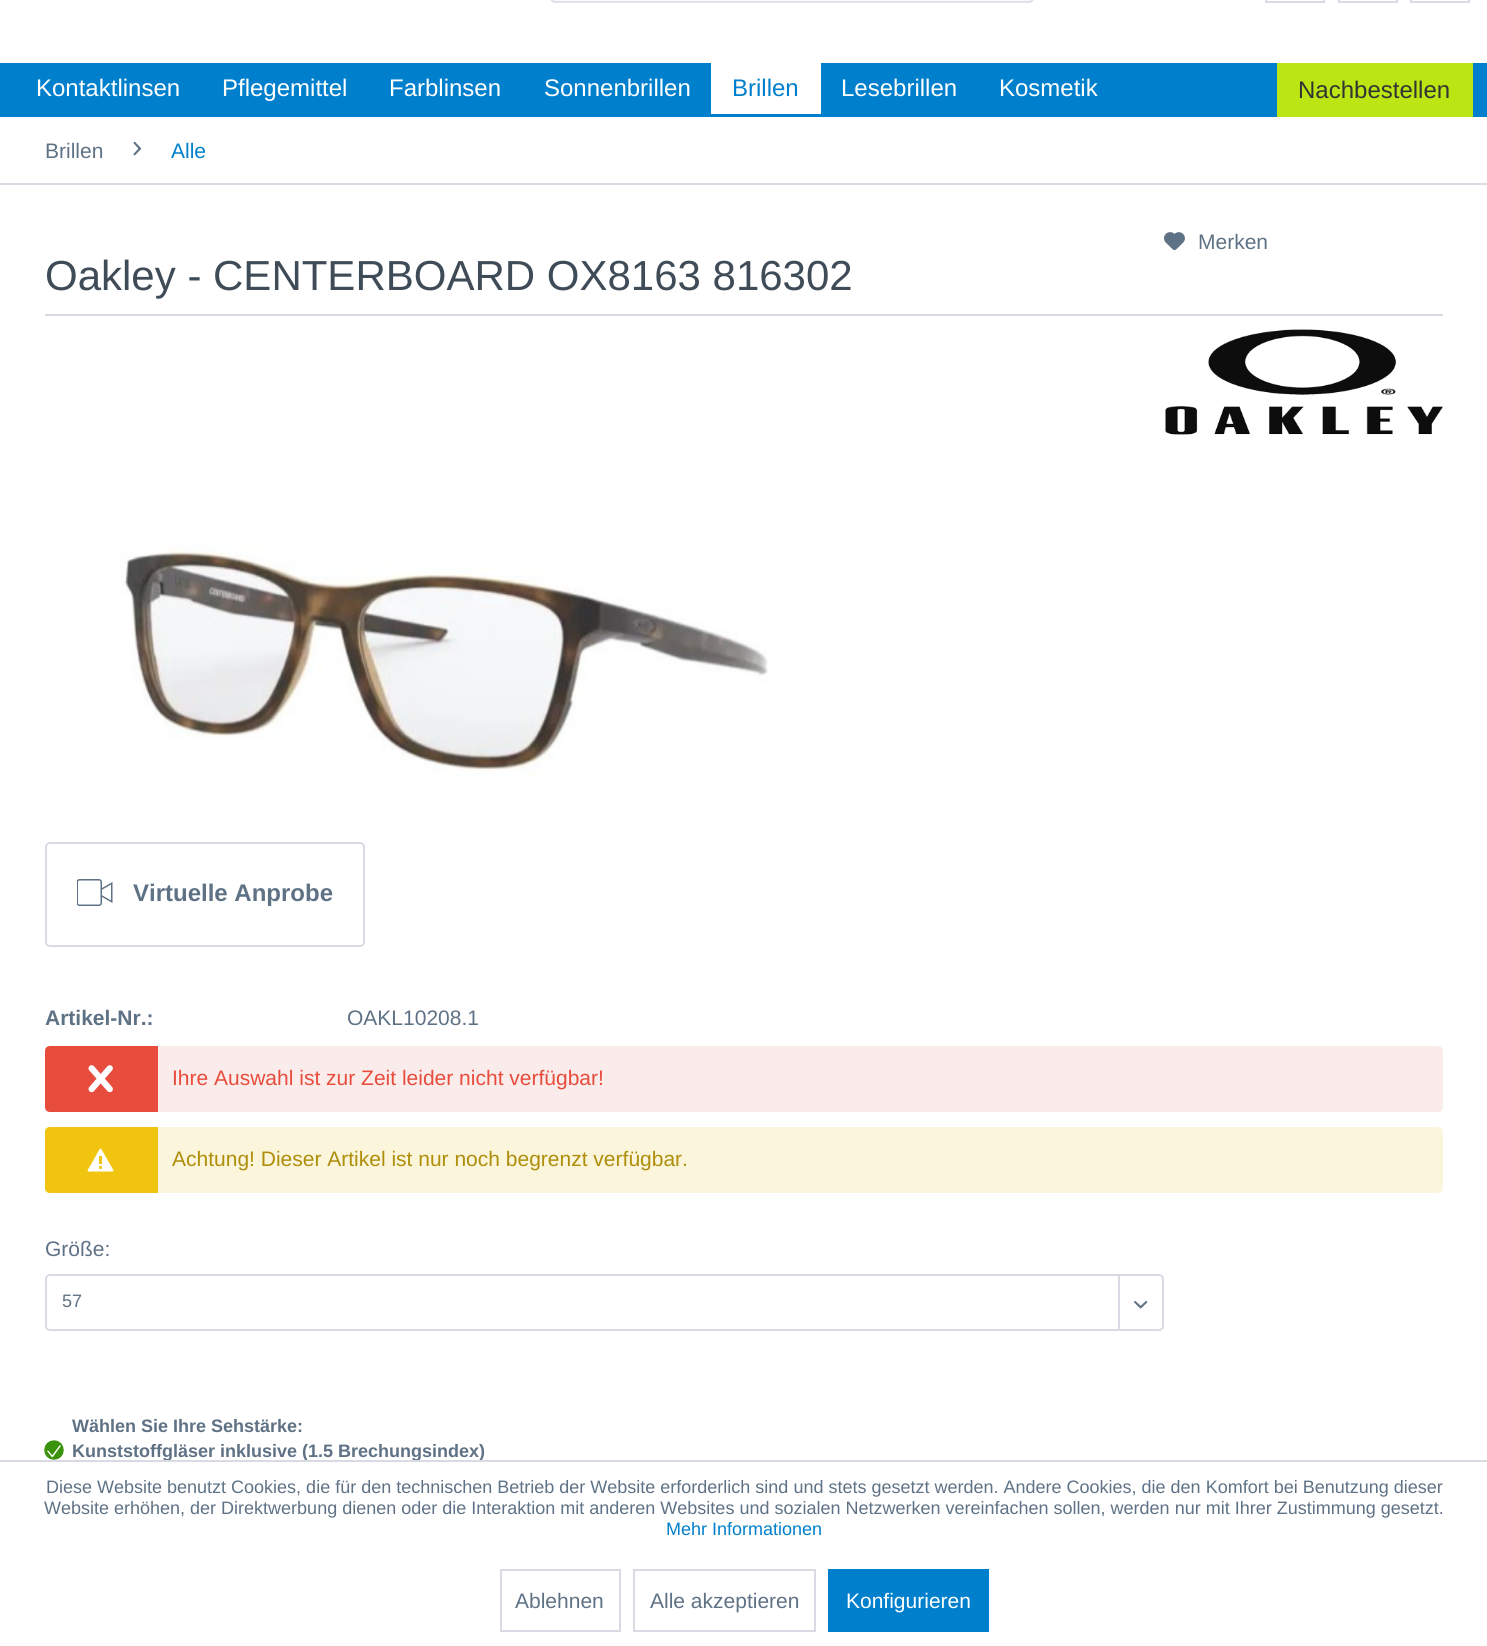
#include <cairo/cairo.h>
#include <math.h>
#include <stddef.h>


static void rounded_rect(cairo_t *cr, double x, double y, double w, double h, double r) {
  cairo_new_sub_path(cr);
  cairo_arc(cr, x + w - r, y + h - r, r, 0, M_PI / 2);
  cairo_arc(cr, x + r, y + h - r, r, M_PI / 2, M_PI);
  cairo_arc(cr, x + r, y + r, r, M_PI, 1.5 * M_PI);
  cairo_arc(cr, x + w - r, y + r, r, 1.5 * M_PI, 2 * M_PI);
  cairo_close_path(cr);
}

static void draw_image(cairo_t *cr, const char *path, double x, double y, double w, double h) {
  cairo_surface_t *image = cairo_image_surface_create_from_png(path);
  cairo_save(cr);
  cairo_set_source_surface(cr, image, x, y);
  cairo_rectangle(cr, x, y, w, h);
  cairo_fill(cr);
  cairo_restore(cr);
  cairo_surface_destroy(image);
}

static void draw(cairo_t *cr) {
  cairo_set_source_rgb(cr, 1, 1, 1);
  cairo_paint(cr);
  cairo_set_source_rgb(cr, 248 / 255.0, 248 / 255.0, 250 / 255.0);
  rounded_rect(cr, 551, -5, 483, 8, 5);
  cairo_fill(cr);
  cairo_new_path(cr);
  cairo_move_to(cr, 1031.5, -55);
  cairo_curve_to(cr, 1032.5, -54.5, 1033, -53.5, 1033, -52.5);
  cairo_line_to(cr, 1033, -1.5);
  cairo_curve_to(cr, 1033, -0.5, 1032.5, 0.5, 1031.5, 1);
  cairo_curve_to(cr, 1031, 2, 1030, 2, 1029, 2);
  cairo_line_to(cr, 555, 2);
  cairo_curve_to(cr, 554, 2, 553, 2, 552.5, 1);
  cairo_curve_to(cr, 551.5, 0.5, 551, -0.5, 551, -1.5);
  cairo_line_to(cr, 551, -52.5);
  cairo_curve_to(cr, 551, -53.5, 551.5, -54.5, 552.5, -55);
  cairo_set_source_rgb(cr, 218 / 255.0, 218 / 255.0, 229 / 255.0);
  cairo_set_line_width(cr, 1.5);
  cairo_stroke(cr);
  cairo_rectangle(cr, 1266, -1, 58, 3);
  cairo_set_line_width(cr, 2);
  cairo_stroke(cr);
  cairo_rectangle(cr, 1339, -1, 58, 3);
  cairo_stroke(cr);
  cairo_rectangle(cr, 1411, -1, 58, 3);
  cairo_stroke(cr);
  cairo_set_source_rgb(cr, 0, 128 / 255.0, 204 / 255.0);
  cairo_rectangle(cr, 0, 63, 1487, 54);
  cairo_fill(cr);
  cairo_set_source_rgb(cr, 1, 1, 1);
  cairo_rectangle(cr, 711, 63, 110, 51);
  cairo_fill(cr);
  cairo_rectangle(cr, 1278, 64, 194, 52);
  cairo_set_source_rgb(cr, 187 / 255.0, 229 / 255.0, 19 / 255.0);
  cairo_stroke(cr);
  cairo_rectangle(cr, 1279, 65, 192, 50);
  cairo_fill(cr);
  cairo_set_source_rgb(cr, 218 / 255.0, 218 / 255.0, 229 / 255.0);
  cairo_rectangle(cr, 0, 183, 1487, 2);
  cairo_fill(cr);
  draw_image(cr, "images/1.png", 133, 141, 9, 15);
  cairo_rectangle(cr, 45, 314, 1398, 2);
  cairo_fill(cr);
  draw_image(cr, "images/2.png", 1164, 232, 21, 19);
  draw_image(cr, "images/3.png", 1165, 329, 278, 106);
  draw_image(cr, "images/4.png", 121, 545, 647, 232);
  rounded_rect(cr, 46, 843, 318, 103, 4);
  cairo_stroke(cr);
  draw_image(cr, "images/5.png", 77, 879, 36, 27);
  cairo_set_source_rgb(cr, 250 / 255.0, 236 / 255.0, 235 / 255.0);
  rounded_rect(cr, 45, 1046, 1398, 66, 5);
  cairo_fill(cr);
  cairo_set_source_rgb(cr, 231 / 255.0, 76 / 255.0, 60 / 255.0);
  cairo_new_path(cr);
  cairo_move_to(cr, 50, 1046);
  cairo_line_to(cr, 158, 1046);
  cairo_line_to(cr, 158, 1112);
  cairo_line_to(cr, 50, 1112);
  cairo_curve_to(cr, 47, 1112, 45, 1110, 45, 1107);
  cairo_line_to(cr, 45, 1051);
  cairo_curve_to(cr, 45, 1048, 47, 1046, 50, 1046);
  cairo_close_path(cr);
  cairo_fill(cr);
  draw_image(cr, "images/6.png", 88, 1065, 25, 28);
  cairo_set_source_rgb(cr, 251 / 255.0, 245 / 255.0, 219 / 255.0);
  rounded_rect(cr, 45, 1127, 1398, 66, 5);
  cairo_fill(cr);
  cairo_set_source_rgb(cr, 241 / 255.0, 196 / 255.0, 15 / 255.0);
  cairo_new_path(cr);
  cairo_move_to(cr, 50, 1127);
  cairo_line_to(cr, 158, 1127);
  cairo_line_to(cr, 158, 1193);
  cairo_line_to(cr, 50, 1193);
  cairo_curve_to(cr, 47, 1193, 45, 1191, 45, 1188);
  cairo_line_to(cr, 45, 1132);
  cairo_curve_to(cr, 45, 1129, 47, 1127, 50, 1127);
  cairo_close_path(cr);
  cairo_fill(cr);
  draw_image(cr, "images/7.png", 87, 1148, 27, 24);
  rounded_rect(cr, 46, 1275, 1117, 55, 4);
  cairo_set_source_rgb(cr, 218 / 255.0, 218 / 255.0, 229 / 255.0);
  cairo_stroke(cr);
  cairo_rectangle(cr, 1118, 1275, 2, 54);
  cairo_fill(cr);
  draw_image(cr, "images/8.png", 1134, 1301, 14, 8);
  draw_image(cr, "images/9.png", 44, 1440, 20, 20);
  cairo_rectangle(cr, 501, 1570, 119, 61);
  cairo_stroke(cr);
  cairo_rectangle(cr, 634, 1570, 181, 61);
  cairo_stroke(cr);
  cairo_set_source_rgb(cr, 0, 128 / 255.0, 204 / 255.0);
  cairo_rectangle(cr, 828, 1569, 161, 63);
  cairo_fill(cr);
  cairo_select_font_face(cr, "Liberation Sans", CAIRO_FONT_SLANT_NORMAL, CAIRO_FONT_WEIGHT_NORMAL);
  cairo_set_font_size(cr, 24);
  cairo_set_source_rgb(cr, 1, 1, 1);
  cairo_move_to(cr, 36, 96);
  cairo_show_text(cr, "Kontaktlinsen");
  cairo_move_to(cr, 222, 96);
  cairo_show_text(cr, "Pflegemittel");
  cairo_move_to(cr, 389, 96);
  cairo_show_text(cr, "Farblinsen");
  cairo_move_to(cr, 544, 96);
  cairo_show_text(cr, "Sonnenbrillen");
  cairo_set_source_rgb(cr, 0, 128 / 255.0, 204 / 255.0);
  cairo_move_to(cr, 732, 96);
  cairo_show_text(cr, "Brillen");
  cairo_set_source_rgb(cr, 1, 1, 1);
  cairo_move_to(cr, 841, 96);
  cairo_show_text(cr, "Lesebrillen");
  cairo_move_to(cr, 999, 96);
  cairo_show_text(cr, "Kosmetik");
  cairo_set_source_rgb(cr, 51 / 255.0, 51 / 255.0, 51 / 255.0);
  cairo_move_to(cr, 1298, 98);
  cairo_show_text(cr, "Nachbestellen");
  cairo_set_font_size(cr, 21);
  cairo_set_source_rgb(cr, 95 / 255.0, 114 / 255.0, 133 / 255.0);
  cairo_move_to(cr, 45, 158);
  cairo_show_text(cr, "Brillen");
  cairo_set_source_rgb(cr, 0, 128 / 255.0, 204 / 255.0);
  cairo_move_to(cr, 171, 158);
  cairo_show_text(cr, "Alle");
  cairo_set_source_rgb(cr, 95 / 255.0, 114 / 255.0, 133 / 255.0);
  cairo_move_to(cr, 1198, 249);
  cairo_show_text(cr, "Merken");
  cairo_set_font_size(cr, 42);
  cairo_set_source_rgb(cr, 63 / 255.0, 76 / 255.0, 88 / 255.0);
  cairo_move_to(cr, 45, 290);
  cairo_show_text(cr, "Oakley - CENTERBOARD OX8163 816302");
  cairo_select_font_face(cr, "Liberation Sans", CAIRO_FONT_SLANT_NORMAL, CAIRO_FONT_WEIGHT_BOLD);
  cairo_set_font_size(cr, 24);
  cairo_set_source_rgb(cr, 95 / 255.0, 114 / 255.0, 133 / 255.0);
  cairo_move_to(cr, 133, 901);
  cairo_show_text(cr, "Virtuelle Anprobe");
  cairo_set_font_size(cr, 21);
  cairo_move_to(cr, 45, 1025);
  cairo_show_text(cr, "Artikel-Nr.:");
  cairo_select_font_face(cr, "Liberation Sans", CAIRO_FONT_SLANT_NORMAL, CAIRO_FONT_WEIGHT_NORMAL);
  cairo_move_to(cr, 347, 1025);
  cairo_show_text(cr, "OAKL10208.1");
  cairo_set_source_rgb(cr, 231 / 255.0, 76 / 255.0, 60 / 255.0);
  cairo_move_to(cr, 172, 1085);
  cairo_show_text(cr, "Ihre Auswahl ist zur Zeit leider nicht verfügbar!");
  cairo_set_source_rgb(cr, 174 / 255.0, 142 / 255.0, 10 / 255.0);
  cairo_move_to(cr, 172, 1166);
  cairo_show_text(cr, "Achtung! Dieser Artikel ist nur noch begrenzt verfügbar.");
  cairo_set_source_rgb(cr, 95 / 255.0, 114 / 255.0, 133 / 255.0);
  cairo_move_to(cr, 45, 1256);
  cairo_show_text(cr, "Größe:");
  cairo_set_font_size(cr, 18);
  cairo_move_to(cr, 62, 1307);
  cairo_show_text(cr, "57");
  cairo_select_font_face(cr, "Liberation Sans", CAIRO_FONT_SLANT_NORMAL, CAIRO_FONT_WEIGHT_BOLD);
  cairo_move_to(cr, 72, 1432);
  cairo_show_text(cr, "Wählen Sie Ihre Sehstärke:");
  cairo_move_to(cr, 72, 1457);
  cairo_show_text(cr, "Kunststoffgläser inklusive (1.5 Brechungsindex)");
  cairo_set_source_rgb(cr, 218 / 255.0, 218 / 255.0, 229 / 255.0);
  cairo_rectangle(cr, 0, 1460, 1487, 2);
  cairo_fill(cr);
  cairo_select_font_face(cr, "Liberation Sans", CAIRO_FONT_SLANT_NORMAL, CAIRO_FONT_WEIGHT_NORMAL);
  cairo_set_source_rgb(cr, 95 / 255.0, 114 / 255.0, 133 / 255.0);
  cairo_move_to(cr, 46, 1493);
  cairo_show_text(cr, "Diese Website benutzt Cookies, die für den technischen Betrieb der Website erforderlich sind und stets gesetzt werden. Andere Cookies, die den Komfort bei Benutzung dieser");
  cairo_move_to(cr, 44, 1514);
  cairo_show_text(cr, "Website erhöhen, der Direktwerbung dienen oder die Interaktion mit anderen Websites und sozialen Netzwerken vereinfachen sollen, werden nur mit Ihrer Zustimmung gesetzt.");
  cairo_set_source_rgb(cr, 0, 128 / 255.0, 204 / 255.0);
  cairo_move_to(cr, 666, 1535);
  cairo_show_text(cr, "Mehr Informationen");
  cairo_set_font_size(cr, 21);
  cairo_set_source_rgb(cr, 95 / 255.0, 114 / 255.0, 133 / 255.0);
  cairo_move_to(cr, 515, 1608);
  cairo_show_text(cr, "Ablehnen");
  cairo_move_to(cr, 650, 1608);
  cairo_show_text(cr, "Alle akzeptieren");
  cairo_set_source_rgb(cr, 1, 1, 1);
  cairo_move_to(cr, 846, 1608);
  cairo_show_text(cr, "Konfigurieren");
}

int main(void) {
  cairo_surface_t *surface = cairo_image_surface_create(CAIRO_FORMAT_RGB24, 1487, 1646);
  cairo_t *cr = cairo_create(surface);
  cairo_font_options_t *options = cairo_font_options_create();
  cairo_font_options_set_hint_metrics(options, CAIRO_HINT_METRICS_OFF);
  cairo_font_options_set_hint_style(options, CAIRO_HINT_STYLE_NONE);
  cairo_set_font_options(cr, options);
  cairo_set_miter_limit(cr, 4);
  draw(cr);
  cairo_surface_write_to_png(surface, "out.png");
  cairo_font_options_destroy(options);
  cairo_destroy(cr);
  cairo_surface_destroy(surface);
  return 0;
}
